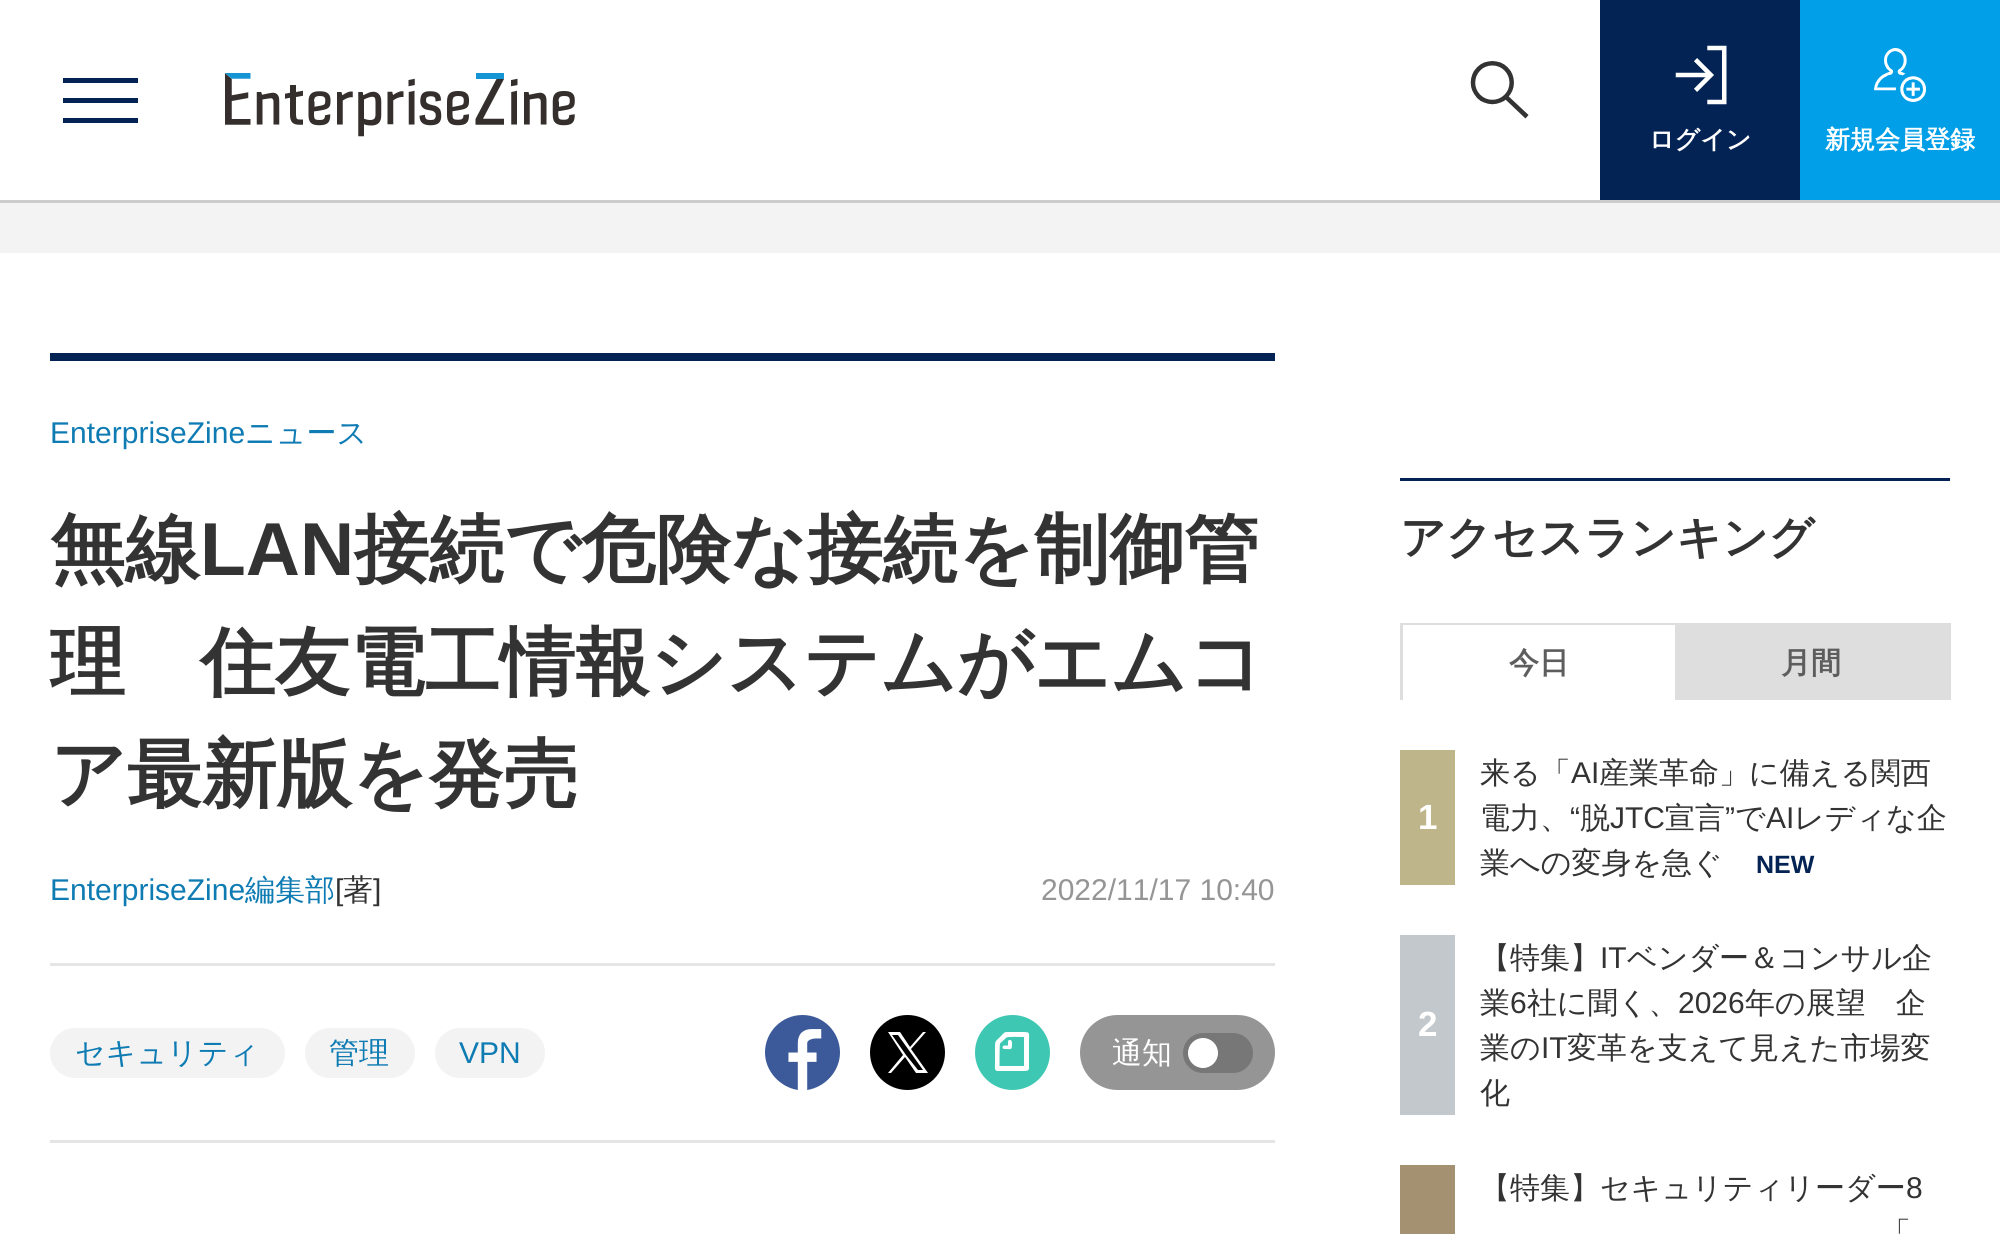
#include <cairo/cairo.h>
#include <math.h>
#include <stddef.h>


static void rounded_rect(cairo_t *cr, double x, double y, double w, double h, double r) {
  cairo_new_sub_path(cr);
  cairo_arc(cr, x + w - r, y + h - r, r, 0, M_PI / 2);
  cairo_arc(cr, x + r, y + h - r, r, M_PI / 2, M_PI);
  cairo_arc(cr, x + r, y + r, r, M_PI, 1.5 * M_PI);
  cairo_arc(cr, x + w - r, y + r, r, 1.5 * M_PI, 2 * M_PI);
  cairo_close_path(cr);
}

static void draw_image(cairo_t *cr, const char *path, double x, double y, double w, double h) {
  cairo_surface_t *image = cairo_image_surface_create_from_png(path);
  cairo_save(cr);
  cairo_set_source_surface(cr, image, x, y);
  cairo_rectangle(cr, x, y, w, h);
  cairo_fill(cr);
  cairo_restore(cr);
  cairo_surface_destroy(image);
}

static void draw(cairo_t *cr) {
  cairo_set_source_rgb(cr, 1, 1, 1);
  cairo_paint(cr);
  cairo_set_source_rgb(cr, 204 / 255.0, 204 / 255.0, 204 / 255.0);
  cairo_rectangle(cr, 0, 200, 2000, 3);
  cairo_fill(cr);
  cairo_set_source_rgb(cr, 2 / 255.0, 35 / 255.0, 84 / 255.0);
  cairo_rectangle(cr, 63, 98, 75, 5);
  cairo_fill(cr);
  cairo_rectangle(cr, 63, 78, 75, 5);
  cairo_fill(cr);
  cairo_rectangle(cr, 63, 118, 75, 5);
  cairo_fill(cr);
  draw_image(cr, "images/1.png", 225, 73, 350, 64);
  draw_image(cr, "images/2.png", 1470, 61, 59, 58);
  cairo_rectangle(cr, 1600, 0, 200, 200);
  cairo_fill(cr);
  draw_image(cr, "images/3.png", 1675, 45, 52, 60);
  cairo_set_source_rgb(cr, 0, 159 / 255.0, 232 / 255.0);
  cairo_rectangle(cr, 1800, 0, 200, 200);
  cairo_fill(cr);
  draw_image(cr, "images/4.png", 1874, 48, 52, 54);
  cairo_set_source_rgb(cr, 243 / 255.0, 243 / 255.0, 243 / 255.0);
  cairo_rectangle(cr, 0, 203, 2000, 50);
  cairo_fill(cr);
  cairo_set_source_rgb(cr, 2 / 255.0, 35 / 255.0, 84 / 255.0);
  cairo_rectangle(cr, 50, 353, 1225, 8);
  cairo_fill(cr);
  cairo_set_source_rgb(cr, 229 / 255.0, 229 / 255.0, 229 / 255.0);
  cairo_rectangle(cr, 50, 1140, 1225, 3);
  cairo_fill(cr);
  cairo_rectangle(cr, 50, 963, 1225, 3);
  cairo_fill(cr);
  cairo_set_source_rgb(cr, 243 / 255.0, 243 / 255.0, 243 / 255.0);
  rounded_rect(cr, 50, 1028, 235, 50, 25);
  cairo_fill(cr);
  rounded_rect(cr, 305, 1028, 110, 50, 25);
  cairo_fill(cr);
  rounded_rect(cr, 435, 1028, 110, 50, 25);
  cairo_fill(cr);
  draw_image(cr, "images/5.png", 765, 1015, 75, 75);
  cairo_set_source_rgb(cr, 0, 0, 0);
  cairo_arc(cr, 907.5, 1052.5, 37.5, 0, 2 * M_PI);
  cairo_fill(cr);
  cairo_set_source_rgb(cr, 1, 1, 1);
  cairo_new_path(cr);
  cairo_move_to(cr, 911, 1049);
  cairo_line_to(cr, 926, 1032);
  cairo_line_to(cr, 923, 1032);
  cairo_line_to(cr, 910, 1047);
  cairo_line_to(cr, 900, 1032);
  cairo_line_to(cr, 888, 1032);
  cairo_line_to(cr, 903, 1055);
  cairo_line_to(cr, 888, 1073);
  cairo_line_to(cr, 891, 1073);
  cairo_line_to(cr, 905, 1057);
  cairo_line_to(cr, 916, 1073);
  cairo_line_to(cr, 928, 1073);
  cairo_close_path(cr);
  cairo_move_to(cr, 906, 1055);
  cairo_line_to(cr, 892, 1035);
  cairo_line_to(cr, 898, 1035);
  cairo_line_to(cr, 923, 1070);
  cairo_line_to(cr, 918, 1070);
  cairo_close_path(cr);
  cairo_fill(cr);
  cairo_set_source_rgb(cr, 62 / 255.0, 200 / 255.0, 179 / 255.0);
  cairo_arc(cr, 1012.5, 1052.5, 37.5, 0, 2 * M_PI);
  cairo_fill(cr);
  cairo_set_source_rgb(cr, 1, 1, 1);
  cairo_set_fill_rule(cr, CAIRO_FILL_RULE_EVEN_ODD);
  cairo_new_path(cr);
  cairo_move_to(cr, 997.5, 1071);
  cairo_line_to(cr, 1021.5, 1071);
  cairo_curve_to(cr, 1030, 1071, 1029, 1071, 1029, 1062.5);
  cairo_line_to(cr, 1029, 1040.5);
  cairo_curve_to(cr, 1029, 1033, 1030.5, 1032, 1023, 1032);
  cairo_line_to(cr, 1006.5, 1032);
  cairo_curve_to(cr, 1004, 1032, 1002.5, 1034.5, 1001, 1036);
  cairo_curve_to(cr, 995, 1042, 995, 1040.5, 995, 1048);
  cairo_line_to(cr, 995, 1064);
  cairo_curve_to(cr, 995, 1066, 994, 1071, 997.5, 1071);
  cairo_close_path(cr);
  cairo_move_to(cr, 1006.5, 1037.5);
  cairo_curve_to(cr, 1007, 1036.5, 1022, 1037, 1024, 1037);
  cairo_line_to(cr, 1024, 1066);
  cairo_line_to(cr, 999.5, 1066);
  cairo_curve_to(cr, 999.5, 1063.5, 999.5, 1044.5, 1000, 1043.5);
  cairo_close_path(cr);
  cairo_move_to(cr, 1005, 1049);
  cairo_curve_to(cr, 1011, 1049, 1012, 1050.5, 1012, 1044);
  cairo_curve_to(cr, 1012, 1042.5, 1012, 1039.5, 1009.5, 1040);
  cairo_curve_to(cr, 1009, 1040, 1008, 1040.5, 1008, 1041.5);
  cairo_line_to(cr, 1008, 1045.5);
  cairo_line_to(cr, 1004, 1045.5);
  cairo_curve_to(cr, 1001.5, 1046.5, 1002.5, 1049.5, 1005, 1049);
  cairo_close_path(cr);
  cairo_fill(cr);
  cairo_set_source_rgb(cr, 149 / 255.0, 149 / 255.0, 149 / 255.0);
  rounded_rect(cr, 1080, 1015, 195, 75, 37.5);
  cairo_fill(cr);
  cairo_set_source_rgb(cr, 119 / 255.0, 119 / 255.0, 119 / 255.0);
  rounded_rect(cr, 1183, 1033, 70, 40, 20);
  cairo_fill(cr);
  cairo_set_source_rgb(cr, 1, 1, 1);
  cairo_arc(cr, 1203, 1053, 15, 0, 2 * M_PI);
  cairo_fill(cr);
  cairo_set_source_rgb(cr, 2 / 255.0, 35 / 255.0, 84 / 255.0);
  cairo_rectangle(cr, 1400, 478, 550, 3);
  cairo_fill(cr);
  cairo_set_source_rgb(cr, 222 / 255.0, 222 / 255.0, 222 / 255.0);
  cairo_rectangle(cr, 1400, 623, 551, 77);
  cairo_fill(cr);
  cairo_set_source_rgb(cr, 1, 1, 1);
  cairo_rectangle(cr, 1403, 625, 272, 75);
  cairo_fill(cr);
  cairo_set_source_rgb(cr, 191 / 255.0, 181 / 255.0, 139 / 255.0);
  cairo_rectangle(cr, 1400, 750, 55, 135);
  cairo_fill(cr);
  cairo_set_source_rgb(cr, 194 / 255.0, 200 / 255.0, 204 / 255.0);
  cairo_rectangle(cr, 1400, 935, 55, 180);
  cairo_fill(cr);
  cairo_set_source_rgb(cr, 163 / 255.0, 145 / 255.0, 113 / 255.0);
  cairo_rectangle(cr, 1400, 1165, 55, 69);
  cairo_fill(cr);
  cairo_select_font_face(cr, "WenQuanYi Zen Hei", CAIRO_FONT_SLANT_NORMAL, CAIRO_FONT_WEIGHT_BOLD);
  cairo_set_font_size(cr, 25);
  cairo_set_source_rgb(cr, 1, 1, 1);
  cairo_move_to(cr, 1649, 148);
  cairo_show_text(cr, "ログイン");
  cairo_move_to(cr, 1825, 148);
  cairo_show_text(cr, "新規会員登録");
  cairo_select_font_face(cr, "Liberation Sans", CAIRO_FONT_SLANT_NORMAL, CAIRO_FONT_WEIGHT_NORMAL);
  cairo_set_font_size(cr, 30);
  cairo_set_source_rgb(cr, 14 / 255.0, 123 / 255.0, 179 / 255.0);
  cairo_move_to(cr, 50, 443);
  cairo_show_text(cr, "EnterpriseZine");
  cairo_select_font_face(cr, "WenQuanYi Zen Hei Medium", CAIRO_FONT_SLANT_NORMAL, CAIRO_FONT_WEIGHT_NORMAL);
  cairo_move_to(cr, 245, 443);
  cairo_show_text(cr, "ニュース");
  cairo_select_font_face(cr, "WenQuanYi Zen Hei", CAIRO_FONT_SLANT_NORMAL, CAIRO_FONT_WEIGHT_BOLD);
  cairo_set_font_size(cr, 75);
  cairo_set_source_rgb(cr, 51 / 255.0, 51 / 255.0, 51 / 255.0);
  cairo_move_to(cr, 50, 575);
  cairo_show_text(cr, "無線");
  cairo_select_font_face(cr, "Liberation Sans", CAIRO_FONT_SLANT_NORMAL, CAIRO_FONT_WEIGHT_BOLD);
  cairo_move_to(cr, 200, 575);
  cairo_show_text(cr, "LAN");
  cairo_select_font_face(cr, "WenQuanYi Zen Hei", CAIRO_FONT_SLANT_NORMAL, CAIRO_FONT_WEIGHT_BOLD);
  cairo_move_to(cr, 354, 575);
  cairo_show_text(cr, "接続で危険な接続を制御管");
  cairo_move_to(cr, 50, 688);
  cairo_show_text(cr, "理　住友電工情報システムがエムコ");
  cairo_move_to(cr, 50, 800);
  cairo_show_text(cr, "ア最新版を発売");
  cairo_select_font_face(cr, "Liberation Sans", CAIRO_FONT_SLANT_NORMAL, CAIRO_FONT_WEIGHT_NORMAL);
  cairo_set_font_size(cr, 30);
  cairo_set_source_rgb(cr, 14 / 255.0, 123 / 255.0, 179 / 255.0);
  cairo_move_to(cr, 50, 900);
  cairo_show_text(cr, "EnterpriseZine");
  cairo_select_font_face(cr, "WenQuanYi Zen Hei Medium", CAIRO_FONT_SLANT_NORMAL, CAIRO_FONT_WEIGHT_NORMAL);
  cairo_move_to(cr, 245, 900);
  cairo_show_text(cr, "編集部");
  cairo_select_font_face(cr, "Liberation Sans", CAIRO_FONT_SLANT_NORMAL, CAIRO_FONT_WEIGHT_NORMAL);
  cairo_set_source_rgb(cr, 51 / 255.0, 51 / 255.0, 51 / 255.0);
  cairo_move_to(cr, 335, 900);
  cairo_show_text(cr, "[");
  cairo_select_font_face(cr, "WenQuanYi Zen Hei Medium", CAIRO_FONT_SLANT_NORMAL, CAIRO_FONT_WEIGHT_NORMAL);
  cairo_move_to(cr, 343, 900);
  cairo_show_text(cr, "著");
  cairo_select_font_face(cr, "Liberation Sans", CAIRO_FONT_SLANT_NORMAL, CAIRO_FONT_WEIGHT_NORMAL);
  cairo_move_to(cr, 373, 900);
  cairo_show_text(cr, "]");
  cairo_set_source_rgb(cr, 149 / 255.0, 149 / 255.0, 149 / 255.0);
  cairo_move_to(cr, 1041, 900);
  cairo_show_text(cr, "2022/11/17 10:40");
  cairo_select_font_face(cr, "WenQuanYi Zen Hei Medium", CAIRO_FONT_SLANT_NORMAL, CAIRO_FONT_WEIGHT_NORMAL);
  cairo_set_source_rgb(cr, 14 / 255.0, 123 / 255.0, 179 / 255.0);
  cairo_move_to(cr, 75, 1063);
  cairo_show_text(cr, "セキュリティ");
  cairo_move_to(cr, 329, 1063);
  cairo_show_text(cr, "管理");
  cairo_select_font_face(cr, "Liberation Sans", CAIRO_FONT_SLANT_NORMAL, CAIRO_FONT_WEIGHT_NORMAL);
  cairo_move_to(cr, 459, 1063);
  cairo_show_text(cr, "VPN");
  cairo_select_font_face(cr, "WenQuanYi Zen Hei Medium", CAIRO_FONT_SLANT_NORMAL, CAIRO_FONT_WEIGHT_NORMAL);
  cairo_set_source_rgb(cr, 1, 1, 1);
  cairo_move_to(cr, 1112, 1063);
  cairo_show_text(cr, "通知");
  cairo_select_font_face(cr, "WenQuanYi Zen Hei", CAIRO_FONT_SLANT_NORMAL, CAIRO_FONT_WEIGHT_BOLD);
  cairo_set_font_size(cr, 45);
  cairo_set_source_rgb(cr, 51 / 255.0, 51 / 255.0, 51 / 255.0);
  cairo_move_to(cr, 1400, 553);
  cairo_show_text(cr, "アクセスランキング");
  cairo_set_font_size(cr, 30);
  cairo_set_source_rgb(cr, 93 / 255.0, 93 / 255.0, 93 / 255.0);
  cairo_move_to(cr, 1509, 673);
  cairo_show_text(cr, "今日");
  cairo_move_to(cr, 1781, 673);
  cairo_show_text(cr, "月間");
  cairo_select_font_face(cr, "Liberation Sans", CAIRO_FONT_SLANT_NORMAL, CAIRO_FONT_WEIGHT_BOLD);
  cairo_set_font_size(cr, 35);
  cairo_set_source_rgb(cr, 1, 1, 1);
  cairo_move_to(cr, 1418, 829);
  cairo_show_text(cr, "1");
  cairo_select_font_face(cr, "WenQuanYi Zen Hei Medium", CAIRO_FONT_SLANT_NORMAL, CAIRO_FONT_WEIGHT_NORMAL);
  cairo_set_font_size(cr, 30);
  cairo_set_source_rgb(cr, 51 / 255.0, 51 / 255.0, 51 / 255.0);
  cairo_move_to(cr, 1480, 783);
  cairo_show_text(cr, "来る「");
  cairo_select_font_face(cr, "Liberation Sans", CAIRO_FONT_SLANT_NORMAL, CAIRO_FONT_WEIGHT_NORMAL);
  cairo_move_to(cr, 1571, 783);
  cairo_show_text(cr, "AI");
  cairo_select_font_face(cr, "WenQuanYi Zen Hei Medium", CAIRO_FONT_SLANT_NORMAL, CAIRO_FONT_WEIGHT_NORMAL);
  cairo_move_to(cr, 1599, 783);
  cairo_show_text(cr, "産業革命」に備える関西");
  cairo_move_to(cr, 1480, 828);
  cairo_show_text(cr, "電力、");
  cairo_select_font_face(cr, "Liberation Sans", CAIRO_FONT_SLANT_NORMAL, CAIRO_FONT_WEIGHT_NORMAL);
  cairo_move_to(cr, 1570, 828);
  cairo_show_text(cr, "“");
  cairo_select_font_face(cr, "WenQuanYi Zen Hei Medium", CAIRO_FONT_SLANT_NORMAL, CAIRO_FONT_WEIGHT_NORMAL);
  cairo_move_to(cr, 1580, 828);
  cairo_show_text(cr, "脱");
  cairo_select_font_face(cr, "Liberation Sans", CAIRO_FONT_SLANT_NORMAL, CAIRO_FONT_WEIGHT_NORMAL);
  cairo_move_to(cr, 1610, 828);
  cairo_show_text(cr, "JTC");
  cairo_select_font_face(cr, "WenQuanYi Zen Hei Medium", CAIRO_FONT_SLANT_NORMAL, CAIRO_FONT_WEIGHT_NORMAL);
  cairo_move_to(cr, 1665, 828);
  cairo_show_text(cr, "宣言");
  cairo_select_font_face(cr, "Liberation Sans", CAIRO_FONT_SLANT_NORMAL, CAIRO_FONT_WEIGHT_NORMAL);
  cairo_move_to(cr, 1725, 828);
  cairo_show_text(cr, "”");
  cairo_select_font_face(cr, "WenQuanYi Zen Hei Medium", CAIRO_FONT_SLANT_NORMAL, CAIRO_FONT_WEIGHT_NORMAL);
  cairo_move_to(cr, 1735, 828);
  cairo_show_text(cr, "で");
  cairo_select_font_face(cr, "Liberation Sans", CAIRO_FONT_SLANT_NORMAL, CAIRO_FONT_WEIGHT_NORMAL);
  cairo_move_to(cr, 1766, 828);
  cairo_show_text(cr, "AI");
  cairo_select_font_face(cr, "WenQuanYi Zen Hei Medium", CAIRO_FONT_SLANT_NORMAL, CAIRO_FONT_WEIGHT_NORMAL);
  cairo_move_to(cr, 1794, 828);
  cairo_show_text(cr, "レディな企");
  cairo_move_to(cr, 1480, 873);
  cairo_show_text(cr, "業への変身を急ぐ");
  cairo_select_font_face(cr, "Liberation Sans", CAIRO_FONT_SLANT_NORMAL, CAIRO_FONT_WEIGHT_BOLD);
  cairo_set_font_size(cr, 25);
  cairo_set_source_rgb(cr, 2 / 255.0, 35 / 255.0, 84 / 255.0);
  cairo_move_to(cr, 1756, 873);
  cairo_show_text(cr, "NEW");
  cairo_set_font_size(cr, 35);
  cairo_set_source_rgb(cr, 1, 1, 1);
  cairo_move_to(cr, 1418, 1036);
  cairo_show_text(cr, "2");
  cairo_select_font_face(cr, "WenQuanYi Zen Hei Medium", CAIRO_FONT_SLANT_NORMAL, CAIRO_FONT_WEIGHT_NORMAL);
  cairo_set_font_size(cr, 30);
  cairo_set_source_rgb(cr, 51 / 255.0, 51 / 255.0, 51 / 255.0);
  cairo_move_to(cr, 1480, 968);
  cairo_show_text(cr, "【特集】");
  cairo_select_font_face(cr, "Liberation Sans", CAIRO_FONT_SLANT_NORMAL, CAIRO_FONT_WEIGHT_NORMAL);
  cairo_move_to(cr, 1600, 968);
  cairo_show_text(cr, "IT");
  cairo_select_font_face(cr, "WenQuanYi Zen Hei Medium", CAIRO_FONT_SLANT_NORMAL, CAIRO_FONT_WEIGHT_NORMAL);
  cairo_move_to(cr, 1627, 968);
  cairo_show_text(cr, "ベンダー＆コンサル企");
  cairo_move_to(cr, 1480, 1013);
  cairo_show_text(cr, "業");
  cairo_select_font_face(cr, "Liberation Sans", CAIRO_FONT_SLANT_NORMAL, CAIRO_FONT_WEIGHT_NORMAL);
  cairo_move_to(cr, 1510, 1013);
  cairo_show_text(cr, "6");
  cairo_select_font_face(cr, "WenQuanYi Zen Hei Medium", CAIRO_FONT_SLANT_NORMAL, CAIRO_FONT_WEIGHT_NORMAL);
  cairo_move_to(cr, 1527, 1013);
  cairo_show_text(cr, "社に聞く、");
  cairo_select_font_face(cr, "Liberation Sans", CAIRO_FONT_SLANT_NORMAL, CAIRO_FONT_WEIGHT_NORMAL);
  cairo_move_to(cr, 1678, 1013);
  cairo_show_text(cr, "2026");
  cairo_select_font_face(cr, "WenQuanYi Zen Hei Medium", CAIRO_FONT_SLANT_NORMAL, CAIRO_FONT_WEIGHT_NORMAL);
  cairo_move_to(cr, 1745, 1013);
  cairo_show_text(cr, "年の展望　企");
  cairo_move_to(cr, 1480, 1058);
  cairo_show_text(cr, "業の");
  cairo_select_font_face(cr, "Liberation Sans", CAIRO_FONT_SLANT_NORMAL, CAIRO_FONT_WEIGHT_NORMAL);
  cairo_move_to(cr, 1541, 1058);
  cairo_show_text(cr, "IT");
  cairo_select_font_face(cr, "WenQuanYi Zen Hei Medium", CAIRO_FONT_SLANT_NORMAL, CAIRO_FONT_WEIGHT_NORMAL);
  cairo_move_to(cr, 1567, 1058);
  cairo_show_text(cr, "変革を支えて見えた市場変");
  cairo_move_to(cr, 1480, 1103);
  cairo_show_text(cr, "化");
  cairo_move_to(cr, 1480, 1198);
  cairo_show_text(cr, "【特集】セキュリティリーダー");
  cairo_select_font_face(cr, "Liberation Sans", CAIRO_FONT_SLANT_NORMAL, CAIRO_FONT_WEIGHT_NORMAL);
  cairo_move_to(cr, 1906, 1198);
  cairo_show_text(cr, "8");
  cairo_select_font_face(cr, "WenQuanYi Zen Hei Medium", CAIRO_FONT_SLANT_NORMAL, CAIRO_FONT_WEIGHT_NORMAL);
  cairo_move_to(cr, 1881, 1243);
  cairo_show_text(cr, "「");
}

int main(void) {
  cairo_surface_t *surface = cairo_image_surface_create(CAIRO_FORMAT_RGB24, 2000, 1234);
  cairo_t *cr = cairo_create(surface);
  cairo_font_options_t *options = cairo_font_options_create();
  cairo_font_options_set_hint_metrics(options, CAIRO_HINT_METRICS_OFF);
  cairo_font_options_set_hint_style(options, CAIRO_HINT_STYLE_NONE);
  cairo_set_font_options(cr, options);
  cairo_set_miter_limit(cr, 4);
  draw(cr);
  cairo_surface_write_to_png(surface, "out.png");
  cairo_font_options_destroy(options);
  cairo_destroy(cr);
  cairo_surface_destroy(surface);
  return 0;
}
